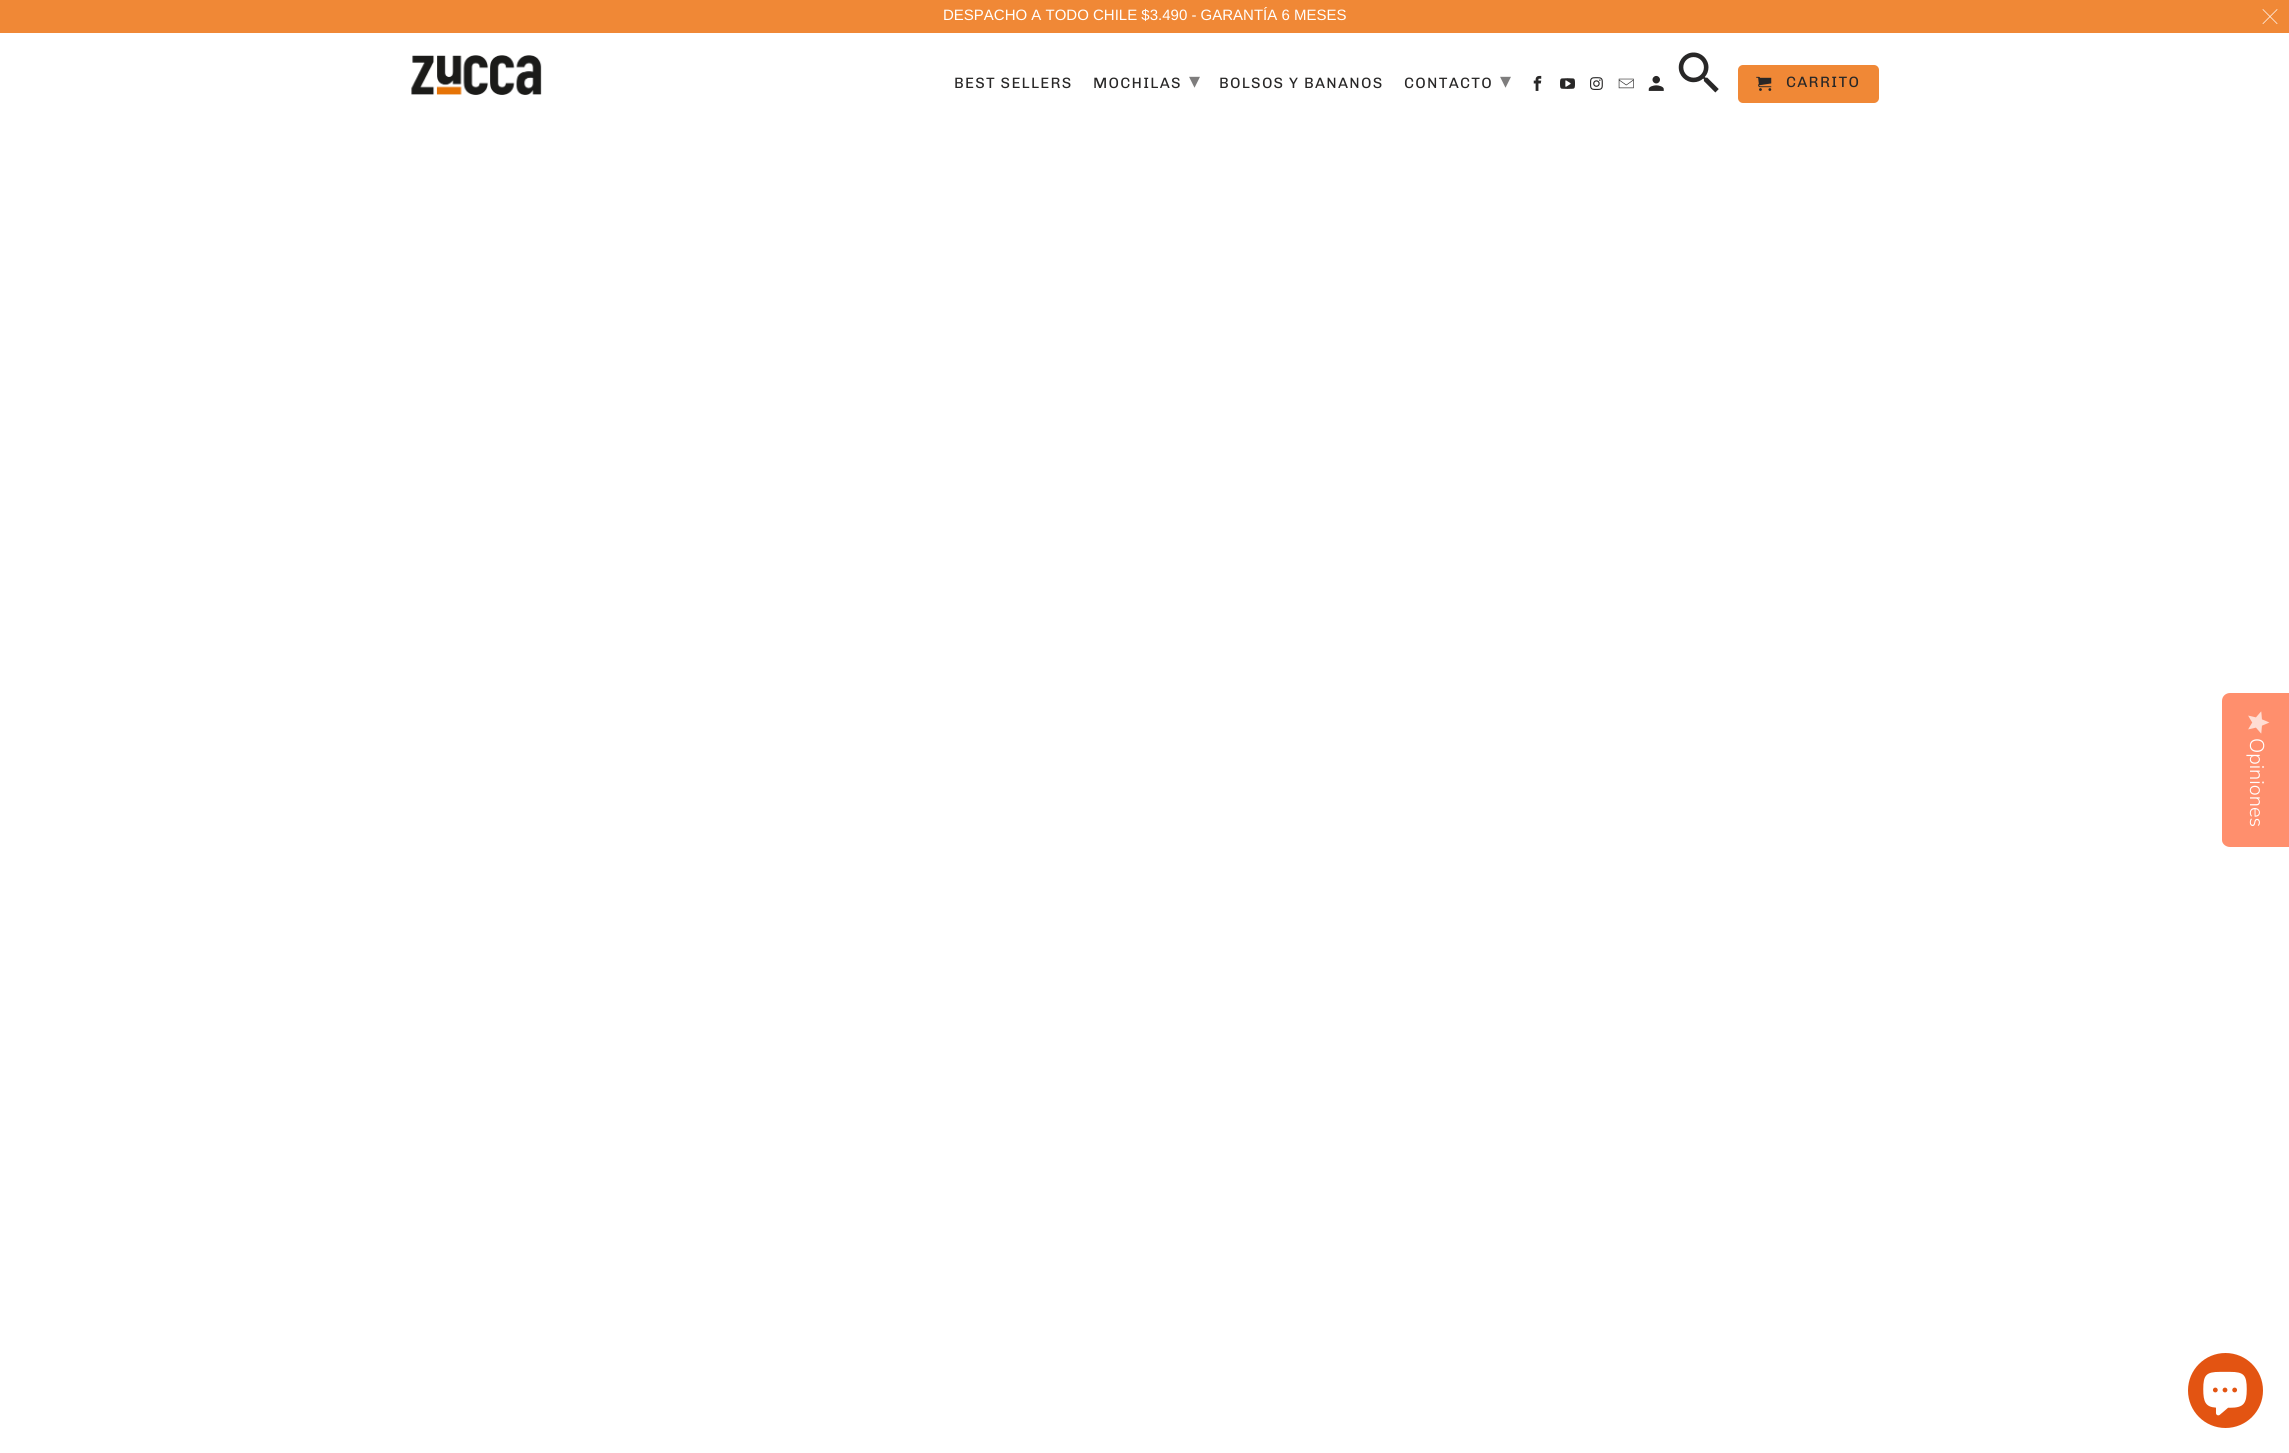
#include <cairo/cairo.h>
#include <math.h>
#include <stddef.h>


static void draw_spaced(cairo_t *cr, double x, double y, const char *s, double letter, double word) {
  cairo_move_to(cr, x, y);
  while (*s) {
    char ch[5] = {0};
    int n = 0;
    do ch[n++] = *s++; while ((*s & 0xC0) == 0x80);
    cairo_show_text(cr, ch);
    cairo_rel_move_to(cr, letter + word * (*ch == ' '), 0);
  }
}

static void rounded_rect(cairo_t *cr, double x, double y, double w, double h, double r) {
  cairo_new_sub_path(cr);
  cairo_arc(cr, x + w - r, y + h - r, r, 0, M_PI / 2);
  cairo_arc(cr, x + r, y + h - r, r, M_PI / 2, M_PI);
  cairo_arc(cr, x + r, y + r, r, M_PI, 1.5 * M_PI);
  cairo_arc(cr, x + w - r, y + r, r, 1.5 * M_PI, 2 * M_PI);
  cairo_close_path(cr);
}

static void draw_image(cairo_t *cr, const char *path, double x, double y, double w, double h) {
  cairo_surface_t *image = cairo_image_surface_create_from_png(path);
  cairo_save(cr);
  cairo_set_source_surface(cr, image, x, y);
  cairo_rectangle(cr, x, y, w, h);
  cairo_fill(cr);
  cairo_restore(cr);
  cairo_surface_destroy(image);
}

static void draw(cairo_t *cr) {
  cairo_set_source_rgb(cr, 1, 1, 1);
  cairo_paint(cr);
  cairo_set_source_rgb(cr, 240 / 255.0, 136 / 255.0, 54 / 255.0);
  cairo_rectangle(cr, 0, 0, 2289, 33);
  cairo_fill(cr);
  draw_image(cr, "images/1.png", 2262, 9, 16, 15);
  draw_image(cr, "images/2.png", 411, 55, 131, 40);
  draw_image(cr, "images/3.png", 1533, 75, 9, 16);
  draw_image(cr, "images/4.png", 1560, 78, 15, 11);
  draw_image(cr, "images/5.png", 1590, 77, 13, 13);
  draw_image(cr, "images/6.png", 1618, 78, 16, 11);
  draw_image(cr, "images/7.png", 1648, 75, 16, 16);
  draw_image(cr, "images/8.png", 1678, 52, 41, 41);
  rounded_rect(cr, 1738, 65, 141, 38, 5);
  cairo_fill(cr);
  draw_image(cr, "images/9.png", 1756, 76, 16, 15);
  cairo_set_source_rgb(cr, 1, 143 / 255.0, 109 / 255.0);
  cairo_new_path(cr);
  cairo_move_to(cr, 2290, 693);
  cairo_line_to(cr, 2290, 847);
  cairo_line_to(cr, 2230, 847);
  cairo_curve_to(cr, 2226, 847, 2222, 844, 2222, 840);
  cairo_line_to(cr, 2222, 701);
  cairo_curve_to(cr, 2222, 696, 2226, 693, 2230, 693);
  cairo_close_path(cr);
  cairo_fill(cr);
  draw_image(cr, "images/10.png", 2248, 711, 22, 23);
  cairo_set_source_rgb(cr, 227 / 255.0, 84 / 255.0, 18 / 255.0);
  cairo_arc(cr, 2225.5, 1390.5, 37.5, 0, 2 * M_PI);
  cairo_fill(cr);
  draw_image(cr, "images/11.png", 2203, 1371, 44, 45);
  cairo_select_font_face(cr, "Liberation Sans", CAIRO_FONT_SLANT_NORMAL, CAIRO_FONT_WEIGHT_NORMAL);
  cairo_set_font_size(cr, 15);
  cairo_set_source_rgb(cr, 1, 1, 1);
  cairo_move_to(cr, 943, 20);
  cairo_show_text(cr, "DESPACHO A TODO CHILE $3.490 - GARANTÍA 6 MESES");
  cairo_select_font_face(cr, "Chivo", CAIRO_FONT_SLANT_NORMAL, CAIRO_FONT_WEIGHT_NORMAL);
  cairo_set_source_rgb(cr, 40 / 255.0, 39 / 255.0, 39 / 255.0);
  draw_spaced(cr, 954, 88, "BEST SELLERS", 1.25, 0);
  draw_spaced(cr, 1093, 88, "MOCHILAS", 1.25, 0);
  cairo_select_font_face(cr, "DejaVu Sans", CAIRO_FONT_SLANT_NORMAL, CAIRO_FONT_WEIGHT_NORMAL);
  cairo_set_font_size(cr, 22);
  cairo_set_source_rgb(cr, 126 / 255.0, 125 / 255.0, 125 / 255.0);
  draw_spaced(cr, 1189, 88, "▾", 1.25, 0);
  cairo_select_font_face(cr, "Chivo", CAIRO_FONT_SLANT_NORMAL, CAIRO_FONT_WEIGHT_NORMAL);
  cairo_set_font_size(cr, 15);
  cairo_set_source_rgb(cr, 40 / 255.0, 39 / 255.0, 39 / 255.0);
  draw_spaced(cr, 1219, 88, "BOLSOS Y BANANOS", 1.25, 0);
  draw_spaced(cr, 1404, 88, "CONTACTO", 1.25, 0);
  cairo_select_font_face(cr, "DejaVu Sans", CAIRO_FONT_SLANT_NORMAL, CAIRO_FONT_WEIGHT_NORMAL);
  cairo_set_font_size(cr, 22);
  cairo_set_source_rgb(cr, 126 / 255.0, 125 / 255.0, 125 / 255.0);
  draw_spaced(cr, 1500, 88, "▾", 1.25, 0);
  cairo_select_font_face(cr, "Chivo", CAIRO_FONT_SLANT_NORMAL, CAIRO_FONT_WEIGHT_NORMAL);
  cairo_set_font_size(cr, 15);
  cairo_set_source_rgb(cr, 40 / 255.0, 39 / 255.0, 39 / 255.0);
  draw_spaced(cr, 1786, 87, "CARRITO", 1.25, 0);
  cairo_select_font_face(cr, "Nunito Sans Light", CAIRO_FONT_SLANT_NORMAL, CAIRO_FONT_WEIGHT_NORMAL);
  cairo_set_font_size(cr, 20);
  cairo_set_source_rgb(cr, 1, 1, 1);
  cairo_save(cr);
  cairo_translate(cr, 2250, 738);
  cairo_rotate(cr, 90 * M_PI / 180);
  cairo_move_to(cr, 0, 0);
  cairo_show_text(cr, "Opiniones");
  cairo_restore(cr);
}

int main(void) {
  cairo_surface_t *surface = cairo_image_surface_create(CAIRO_FORMAT_RGB24, 2289, 1453);
  cairo_t *cr = cairo_create(surface);
  cairo_font_options_t *options = cairo_font_options_create();
  cairo_font_options_set_hint_metrics(options, CAIRO_HINT_METRICS_OFF);
  cairo_font_options_set_hint_style(options, CAIRO_HINT_STYLE_NONE);
  cairo_set_font_options(cr, options);
  cairo_set_miter_limit(cr, 4);
  draw(cr);
  cairo_surface_write_to_png(surface, "out.png");
  cairo_font_options_destroy(options);
  cairo_destroy(cr);
  cairo_surface_destroy(surface);
  return 0;
}
